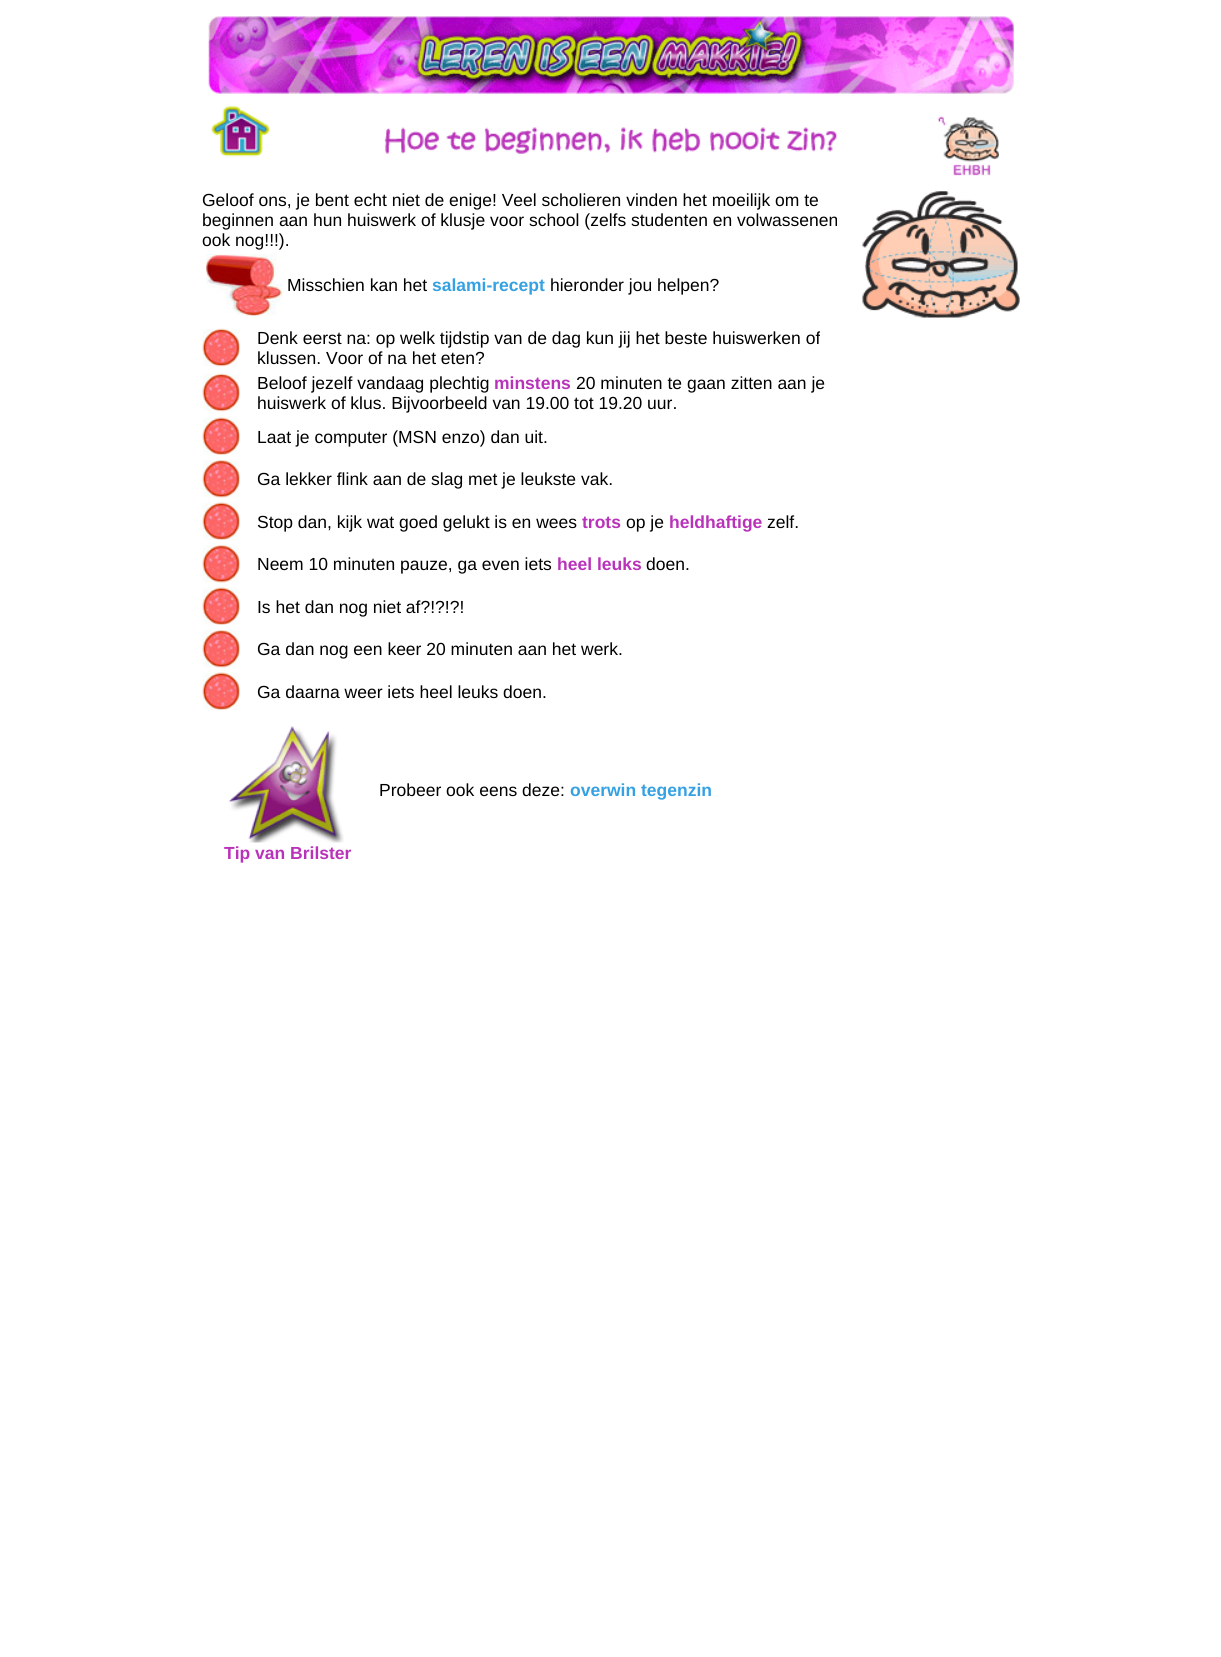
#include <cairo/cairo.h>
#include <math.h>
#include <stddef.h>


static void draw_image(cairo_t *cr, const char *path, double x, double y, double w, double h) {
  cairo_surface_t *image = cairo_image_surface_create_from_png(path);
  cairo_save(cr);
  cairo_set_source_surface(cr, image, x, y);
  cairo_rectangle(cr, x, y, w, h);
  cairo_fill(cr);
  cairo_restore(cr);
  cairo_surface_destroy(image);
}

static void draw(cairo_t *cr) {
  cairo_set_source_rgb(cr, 1, 1, 1);
  cairo_paint(cr);
  draw_image(cr, "images/1.png", 208, 16, 806, 78);
  draw_image(cr, "images/2.png", 211, 106, 60, 51);
  draw_image(cr, "images/3.png", 384, 127, 453, 27);
  draw_image(cr, "images/4.png", 937, 116, 62, 60);
  draw_image(cr, "images/5.png", 206, 254, 77, 63);
  draw_image(cr, "images/6.png", 862, 191, 158, 127);
  draw_image(cr, "images/7.png", 202, 328, 38, 39);
  draw_image(cr, "images/7.png", 202, 373, 38, 39);
  draw_image(cr, "images/8.png", 202, 417, 38, 38);
  draw_image(cr, "images/9.png", 202, 460, 38, 38);
  draw_image(cr, "images/8.png", 202, 502, 38, 38);
  draw_image(cr, "images/9.png", 202, 545, 38, 38);
  draw_image(cr, "images/10.png", 202, 587, 38, 38);
  draw_image(cr, "images/9.png", 202, 630, 38, 38);
  draw_image(cr, "images/8.png", 202, 672, 38, 38);
  draw_image(cr, "images/11.png", 228, 726, 116, 117);
  cairo_select_font_face(cr, "Liberation Sans", CAIRO_FONT_SLANT_NORMAL, CAIRO_FONT_WEIGHT_NORMAL);
  cairo_set_font_size(cr, 17.5);
  cairo_set_source_rgb(cr, 0, 0, 0);
  cairo_move_to(cr, 202, 206);
  cairo_show_text(cr, "Geloof ons, je bent echt niet de enige! Veel scholieren vinden het moeilijk om te");
  cairo_move_to(cr, 202, 226);
  cairo_show_text(cr, "beginnen aan hun huiswerk of klusje voor school (zelfs studenten en volwassenen");
  cairo_move_to(cr, 202, 246);
  cairo_show_text(cr, "ook nog!!!).");
  cairo_move_to(cr, 287, 291);
  cairo_show_text(cr, "Misschien kan het");
  cairo_select_font_face(cr, "Liberation Sans", CAIRO_FONT_SLANT_NORMAL, CAIRO_FONT_WEIGHT_BOLD);
  cairo_set_source_rgb(cr, 53 / 255.0, 161 / 255.0, 226 / 255.0);
  cairo_move_to(cr, 432, 291);
  cairo_show_text(cr, "salami-recept");
  cairo_select_font_face(cr, "Liberation Sans", CAIRO_FONT_SLANT_NORMAL, CAIRO_FONT_WEIGHT_NORMAL);
  cairo_set_source_rgb(cr, 0, 0, 0);
  cairo_move_to(cr, 550, 291);
  cairo_show_text(cr, "hieronder jou helpen?");
  cairo_move_to(cr, 257, 344);
  cairo_show_text(cr, "Denk eerst na: op welk tijdstip van de dag kun jij het beste huiswerken of");
  cairo_move_to(cr, 257, 364);
  cairo_show_text(cr, "klussen. Voor of na het eten?");
  cairo_move_to(cr, 257, 389);
  cairo_show_text(cr, "Beloof jezelf vandaag plechtig");
  cairo_select_font_face(cr, "Liberation Sans", CAIRO_FONT_SLANT_NORMAL, CAIRO_FONT_WEIGHT_BOLD);
  cairo_set_source_rgb(cr, 185 / 255.0, 51 / 255.0, 186 / 255.0);
  cairo_move_to(cr, 494, 389);
  cairo_show_text(cr, "minstens");
  cairo_select_font_face(cr, "Liberation Sans", CAIRO_FONT_SLANT_NORMAL, CAIRO_FONT_WEIGHT_NORMAL);
  cairo_set_source_rgb(cr, 0, 0, 0);
  cairo_move_to(cr, 576, 389);
  cairo_show_text(cr, "20 minuten te gaan zitten aan je");
  cairo_move_to(cr, 257, 409);
  cairo_show_text(cr, "huiswerk of klus. Bijvoorbeeld van 19.00 tot 19.20 uur.");
  cairo_move_to(cr, 257, 443);
  cairo_show_text(cr, "Laat je computer (MSN enzo) dan uit.");
  cairo_move_to(cr, 257, 485);
  cairo_show_text(cr, "Ga lekker flink aan de slag met je leukste vak.");
  cairo_move_to(cr, 257, 528);
  cairo_show_text(cr, "Stop dan, kijk wat goed gelukt is en wees");
  cairo_select_font_face(cr, "Liberation Sans", CAIRO_FONT_SLANT_NORMAL, CAIRO_FONT_WEIGHT_BOLD);
  cairo_set_source_rgb(cr, 185 / 255.0, 51 / 255.0, 186 / 255.0);
  cairo_move_to(cr, 582, 528);
  cairo_show_text(cr, "trots");
  cairo_select_font_face(cr, "Liberation Sans", CAIRO_FONT_SLANT_NORMAL, CAIRO_FONT_WEIGHT_NORMAL);
  cairo_set_source_rgb(cr, 0, 0, 0);
  cairo_move_to(cr, 626, 528);
  cairo_show_text(cr, "op je");
  cairo_select_font_face(cr, "Liberation Sans", CAIRO_FONT_SLANT_NORMAL, CAIRO_FONT_WEIGHT_BOLD);
  cairo_set_source_rgb(cr, 185 / 255.0, 51 / 255.0, 186 / 255.0);
  cairo_move_to(cr, 669, 528);
  cairo_show_text(cr, "heldhaftige");
  cairo_select_font_face(cr, "Liberation Sans", CAIRO_FONT_SLANT_NORMAL, CAIRO_FONT_WEIGHT_NORMAL);
  cairo_set_source_rgb(cr, 0, 0, 0);
  cairo_move_to(cr, 767, 528);
  cairo_show_text(cr, "zelf.");
  cairo_move_to(cr, 257, 570);
  cairo_show_text(cr, "Neem 10 minuten pauze, ga even iets");
  cairo_select_font_face(cr, "Liberation Sans", CAIRO_FONT_SLANT_NORMAL, CAIRO_FONT_WEIGHT_BOLD);
  cairo_set_source_rgb(cr, 185 / 255.0, 51 / 255.0, 186 / 255.0);
  cairo_move_to(cr, 557, 570);
  cairo_show_text(cr, "heel leuks");
  cairo_select_font_face(cr, "Liberation Sans", CAIRO_FONT_SLANT_NORMAL, CAIRO_FONT_WEIGHT_NORMAL);
  cairo_set_source_rgb(cr, 0, 0, 0);
  cairo_move_to(cr, 646, 570);
  cairo_show_text(cr, "doen.");
  cairo_move_to(cr, 257, 613);
  cairo_show_text(cr, "Is het dan nog niet af?!?!?!");
  cairo_move_to(cr, 257, 655);
  cairo_show_text(cr, "Ga dan nog een keer 20 minuten aan het werk.");
  cairo_move_to(cr, 257, 698);
  cairo_show_text(cr, "Ga daarna weer iets heel leuks doen.");
  cairo_move_to(cr, 379, 796);
  cairo_show_text(cr, "Probeer ook eens deze:");
  cairo_select_font_face(cr, "Liberation Sans", CAIRO_FONT_SLANT_NORMAL, CAIRO_FONT_WEIGHT_BOLD);
  cairo_set_source_rgb(cr, 53 / 255.0, 161 / 255.0, 226 / 255.0);
  cairo_move_to(cr, 570, 796);
  cairo_show_text(cr, "overwin tegenzin");
  cairo_set_source_rgb(cr, 185 / 255.0, 51 / 255.0, 186 / 255.0);
  cairo_move_to(cr, 224, 859);
  cairo_show_text(cr, "Tip van Brilster");
}

int main(void) {
  cairo_surface_t *surface = cairo_image_surface_create(CAIRO_FORMAT_RGB24, 1221, 1657);
  cairo_t *cr = cairo_create(surface);
  cairo_font_options_t *options = cairo_font_options_create();
  cairo_font_options_set_hint_metrics(options, CAIRO_HINT_METRICS_OFF);
  cairo_font_options_set_hint_style(options, CAIRO_HINT_STYLE_NONE);
  cairo_set_font_options(cr, options);
  cairo_set_miter_limit(cr, 4);
  draw(cr);
  cairo_surface_write_to_png(surface, "out.png");
  cairo_font_options_destroy(options);
  cairo_destroy(cr);
  cairo_surface_destroy(surface);
  return 0;
}
